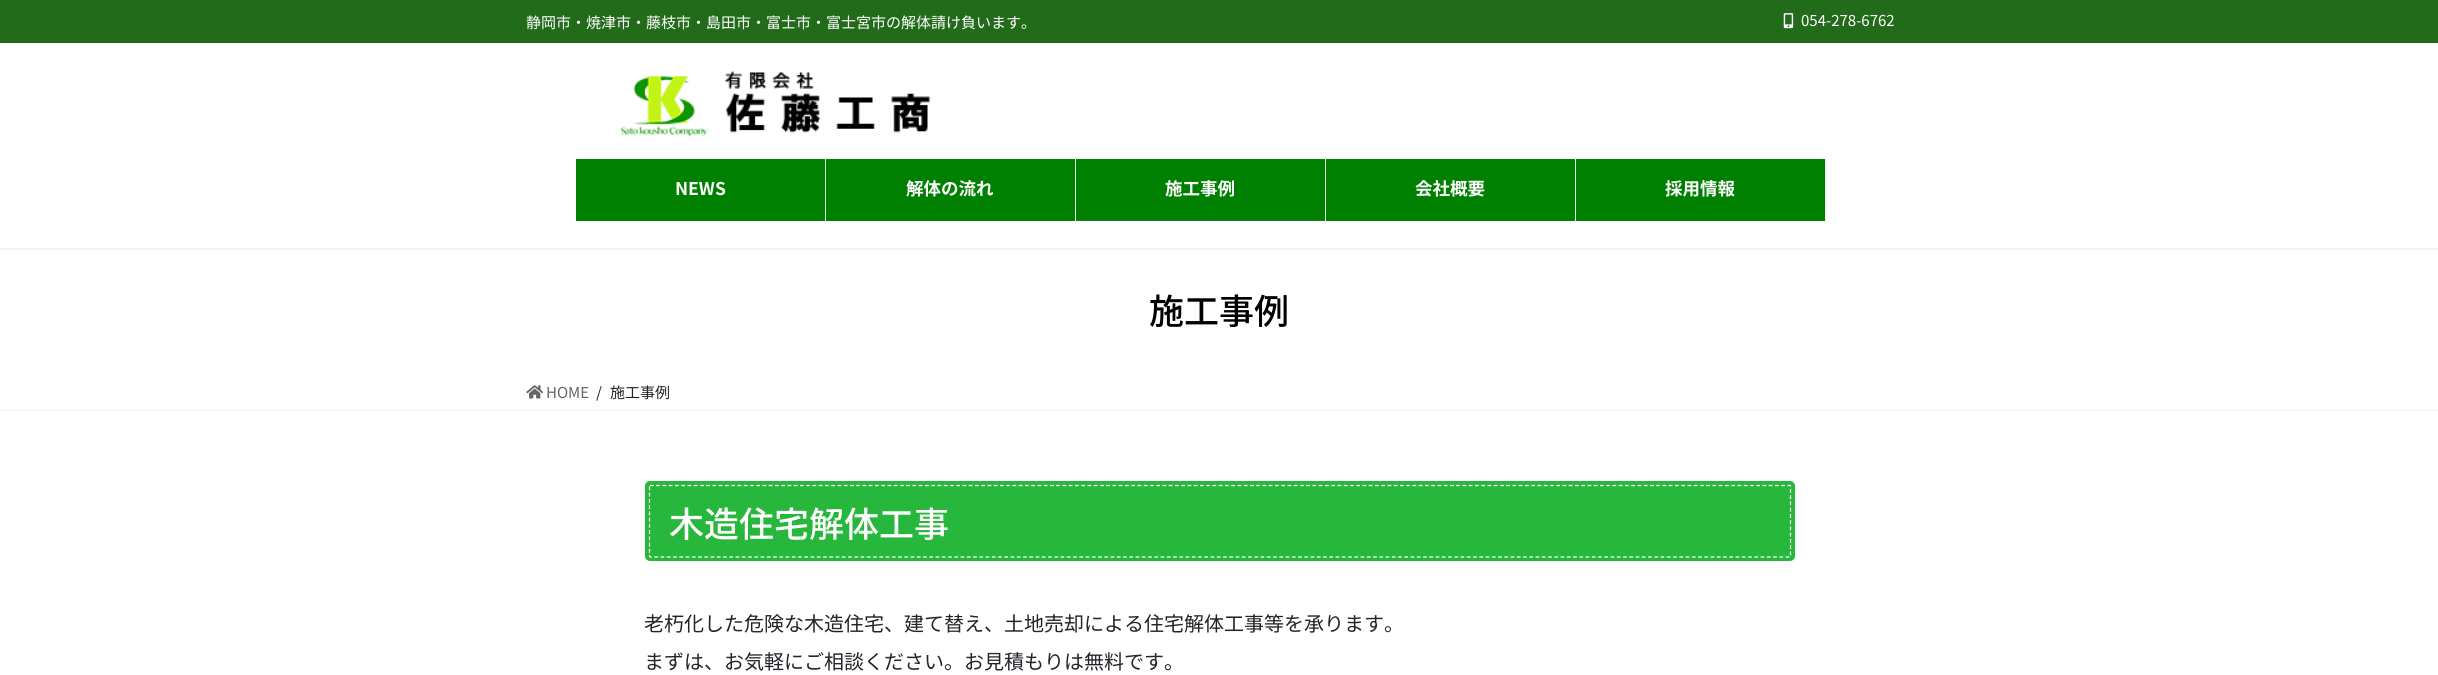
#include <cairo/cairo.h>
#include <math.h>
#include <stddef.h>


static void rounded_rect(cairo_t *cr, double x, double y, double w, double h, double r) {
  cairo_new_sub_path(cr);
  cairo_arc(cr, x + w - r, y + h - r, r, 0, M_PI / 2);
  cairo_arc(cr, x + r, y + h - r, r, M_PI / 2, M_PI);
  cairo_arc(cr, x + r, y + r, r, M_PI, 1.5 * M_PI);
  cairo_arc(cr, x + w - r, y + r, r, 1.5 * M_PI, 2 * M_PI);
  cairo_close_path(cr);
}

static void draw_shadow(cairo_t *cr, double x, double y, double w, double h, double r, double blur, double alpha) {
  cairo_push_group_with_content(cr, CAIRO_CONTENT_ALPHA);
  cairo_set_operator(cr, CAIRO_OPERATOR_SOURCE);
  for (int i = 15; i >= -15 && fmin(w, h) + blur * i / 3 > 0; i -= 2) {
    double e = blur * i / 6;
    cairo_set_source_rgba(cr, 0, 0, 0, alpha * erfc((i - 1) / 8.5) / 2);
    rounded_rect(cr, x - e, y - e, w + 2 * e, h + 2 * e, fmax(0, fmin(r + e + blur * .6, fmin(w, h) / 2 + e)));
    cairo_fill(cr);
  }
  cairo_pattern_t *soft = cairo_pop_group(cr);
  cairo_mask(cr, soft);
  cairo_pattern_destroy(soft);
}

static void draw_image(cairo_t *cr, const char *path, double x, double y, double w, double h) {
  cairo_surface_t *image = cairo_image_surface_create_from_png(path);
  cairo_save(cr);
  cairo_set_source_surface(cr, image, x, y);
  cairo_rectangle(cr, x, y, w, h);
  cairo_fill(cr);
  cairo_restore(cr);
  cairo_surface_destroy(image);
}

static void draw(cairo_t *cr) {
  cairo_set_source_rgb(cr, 1, 1, 1);
  cairo_paint(cr);
  cairo_set_source_rgb(cr, 0, 0, 0);
  draw_shadow(cr, 0, -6, 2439, 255, 0, 2, 0.1);
  cairo_set_source_rgb(cr, 1, 1, 1);
  cairo_rectangle(cr, 0, 43, 2438, 205);
  cairo_fill(cr);
  cairo_set_source_rgb(cr, 34 / 255.0, 107 / 255.0, 27 / 255.0);
  cairo_rectangle(cr, 0, 0, 2438, 43);
  cairo_fill(cr);
  cairo_set_source_rgb(cr, 33 / 255.0, 103 / 255.0, 26 / 255.0);
  cairo_rectangle(cr, 0, 41, 2438, 1);
  cairo_fill(cr);
  draw_image(cr, "images/1.png", 1783, 13, 11, 16);
  draw_image(cr, "images/2.png", 621, 71, 310, 66);
  cairo_set_source_rgb(cr, 0, 128 / 255.0, 0);
  cairo_rectangle(cr, 576, 159, 249, 62);
  cairo_fill(cr);
  cairo_set_source_rgb(cr, 239 / 255.0, 1, 239 / 255.0);
  cairo_rectangle(cr, 825, 159, 1, 62);
  cairo_fill(cr);
  cairo_set_source_rgb(cr, 0, 128 / 255.0, 0);
  cairo_rectangle(cr, 826, 159, 249, 62);
  cairo_fill(cr);
  cairo_set_source_rgb(cr, 239 / 255.0, 1, 239 / 255.0);
  cairo_rectangle(cr, 1075, 159, 1, 62);
  cairo_fill(cr);
  cairo_set_source_rgb(cr, 0, 128 / 255.0, 0);
  cairo_rectangle(cr, 1076, 159, 249, 61);
  cairo_fill(cr);
  cairo_set_source_rgb(cr, 239 / 255.0, 1, 239 / 255.0);
  cairo_rectangle(cr, 1325, 159, 1, 62);
  cairo_fill(cr);
  cairo_set_source_rgb(cr, 28 / 255.0, 122 / 255.0, 56 / 255.0);
  cairo_rectangle(cr, 1076, 220, 249, 1);
  cairo_fill(cr);
  cairo_set_source_rgb(cr, 0, 128 / 255.0, 0);
  cairo_rectangle(cr, 1326, 159, 249, 62);
  cairo_fill(cr);
  cairo_set_source_rgb(cr, 239 / 255.0, 1, 239 / 255.0);
  cairo_rectangle(cr, 1575, 159, 1, 62);
  cairo_fill(cr);
  cairo_set_source_rgb(cr, 0, 128 / 255.0, 0);
  cairo_rectangle(cr, 1576, 159, 249, 62);
  cairo_fill(cr);
  cairo_set_source_rgb(cr, 239 / 255.0, 1, 239 / 255.0);
  cairo_rectangle(cr, 1825, 159, 1, 62);
  cairo_fill(cr);
  cairo_set_source_rgb(cr, 242 / 255.0, 242 / 255.0, 242 / 255.0);
  cairo_rectangle(cr, 0, 410, 2438, 1);
  cairo_fill(cr);
  draw_image(cr, "images/3.png", 526, 385, 18, 14);
  cairo_set_source_rgb(cr, 40 / 255.0, 183 / 255.0, 61 / 255.0);
  rounded_rect(cr, 645, 481, 1150, 80, 5);
  cairo_fill(cr);
  cairo_new_path(cr);
  cairo_move_to(cr, 650, 485.5);
  cairo_line_to(cr, 1790, 485.5);
  cairo_line_to(cr, 1790.5, 486);
  cairo_line_to(cr, 1790.5, 556);
  cairo_line_to(cr, 1790, 557);
  cairo_line_to(cr, 650, 557);
  cairo_line_to(cr, 649.5, 556);
  cairo_line_to(cr, 649.5, 486);
  cairo_close_path(cr);
  cairo_set_source_rgb(cr, 1, 1, 1);
  cairo_set_line_width(cr, 1.2);
  cairo_set_dash(cr, (double[]){3.75, 2.5}, 2, 0);
  cairo_stroke(cr);
  cairo_select_font_face(cr, "Noto Sans JP", CAIRO_FONT_SLANT_NORMAL, CAIRO_FONT_WEIGHT_NORMAL);
  cairo_set_font_size(cr, 15);
  cairo_move_to(cr, 526, 28);
  cairo_show_text(cr, "静岡市・焼津市・藤枝市・島田市・富士市・富士宮市の解体請け負います。");
  cairo_move_to(cr, 1801, 26);
  cairo_show_text(cr, "054-278-6762");
  cairo_select_font_face(cr, "Noto Sans JP", CAIRO_FONT_SLANT_NORMAL, CAIRO_FONT_WEIGHT_BOLD);
  cairo_set_font_size(cr, 17.5);
  cairo_move_to(cr, 675, 195);
  cairo_show_text(cr, "NEWS");
  cairo_move_to(cr, 906, 195);
  cairo_show_text(cr, "解体の流れ");
  cairo_move_to(cr, 1165, 195);
  cairo_show_text(cr, "施工事例");
  cairo_move_to(cr, 1415, 195);
  cairo_show_text(cr, "会社概要");
  cairo_move_to(cr, 1665, 195);
  cairo_show_text(cr, "採用情報");
  cairo_select_font_face(cr, "Noto Sans JP Medium", CAIRO_FONT_SLANT_NORMAL, CAIRO_FONT_WEIGHT_NORMAL);
  cairo_set_font_size(cr, 35);
  cairo_set_source_rgb(cr, 0, 0, 0);
  cairo_move_to(cr, 1149, 324);
  cairo_show_text(cr, "施工事例");
  cairo_select_font_face(cr, "Noto Sans JP", CAIRO_FONT_SLANT_NORMAL, CAIRO_FONT_WEIGHT_NORMAL);
  cairo_set_font_size(cr, 15);
  cairo_set_source_rgb(cr, 102 / 255.0, 102 / 255.0, 102 / 255.0);
  cairo_move_to(cr, 546, 398);
  cairo_show_text(cr, "HOME");
  cairo_set_source_rgb(cr, 33 / 255.0, 37 / 255.0, 41 / 255.0);
  cairo_move_to(cr, 596, 398);
  cairo_show_text(cr, "/");
  cairo_move_to(cr, 610, 398);
  cairo_show_text(cr, "施工事例");
  cairo_select_font_face(cr, "Noto Sans JP Medium", CAIRO_FONT_SLANT_NORMAL, CAIRO_FONT_WEIGHT_NORMAL);
  cairo_set_font_size(cr, 35);
  cairo_set_source_rgb(cr, 1, 1, 1);
  cairo_move_to(cr, 669, 537);
  cairo_show_text(cr, "木造住宅解体工事");
  cairo_select_font_face(cr, "Noto Sans JP", CAIRO_FONT_SLANT_NORMAL, CAIRO_FONT_WEIGHT_NORMAL);
  cairo_set_font_size(cr, 20);
  cairo_set_source_rgb(cr, 33 / 255.0, 37 / 255.0, 41 / 255.0);
  cairo_move_to(cr, 644, 631);
  cairo_show_text(cr, "老朽化した危険な木造住宅、建て替え、土地売却による住宅解体工事等を承ります。");
  cairo_move_to(cr, 644, 669);
  cairo_show_text(cr, "まずは、お気軽にご相談ください。お見積もりは無料です。");
}

int main(void) {
  cairo_surface_t *surface = cairo_image_surface_create(CAIRO_FORMAT_RGB24, 2438, 675);
  cairo_t *cr = cairo_create(surface);
  cairo_font_options_t *options = cairo_font_options_create();
  cairo_font_options_set_hint_metrics(options, CAIRO_HINT_METRICS_OFF);
  cairo_font_options_set_hint_style(options, CAIRO_HINT_STYLE_NONE);
  cairo_set_font_options(cr, options);
  cairo_set_miter_limit(cr, 4);
  draw(cr);
  cairo_surface_write_to_png(surface, "out.png");
  cairo_font_options_destroy(options);
  cairo_destroy(cr);
  cairo_surface_destroy(surface);
  return 0;
}
